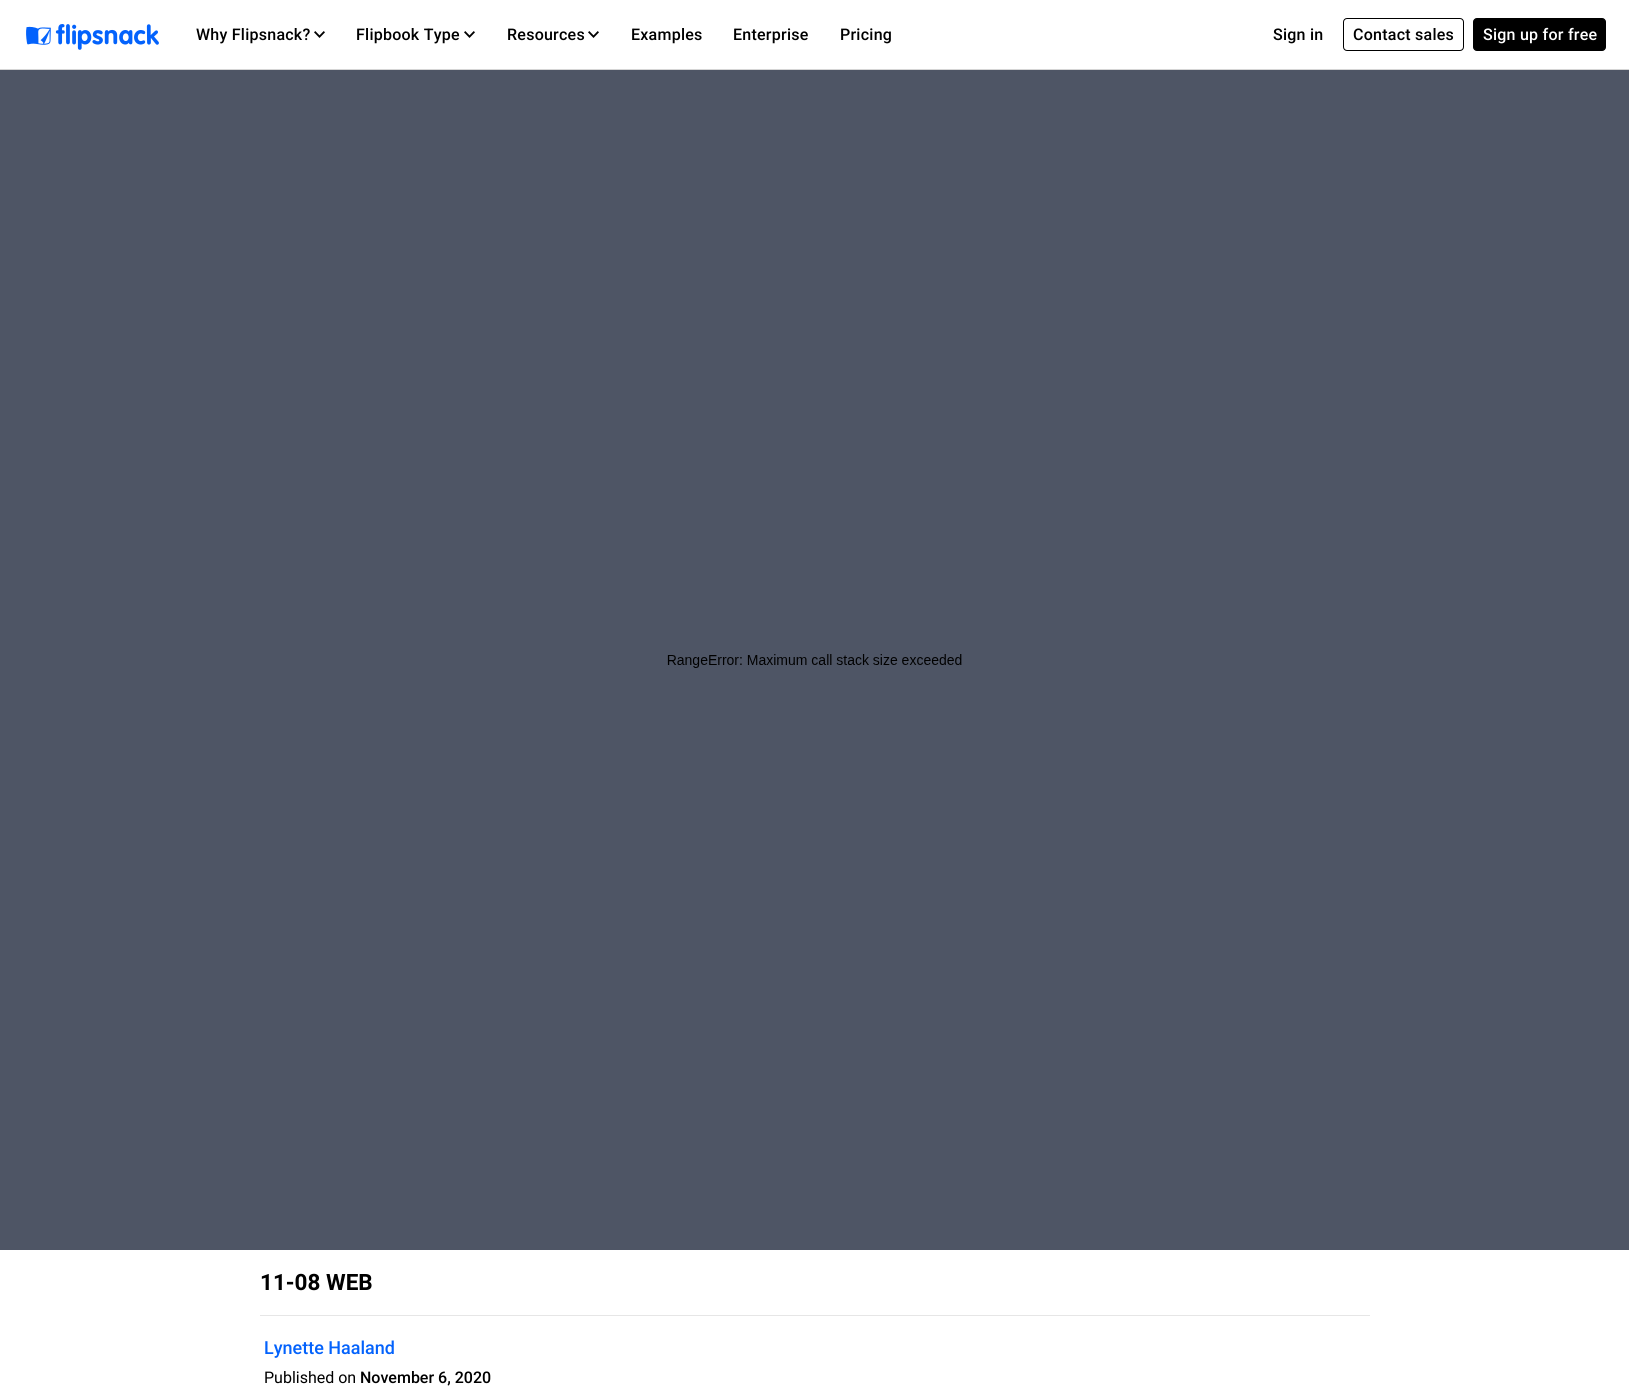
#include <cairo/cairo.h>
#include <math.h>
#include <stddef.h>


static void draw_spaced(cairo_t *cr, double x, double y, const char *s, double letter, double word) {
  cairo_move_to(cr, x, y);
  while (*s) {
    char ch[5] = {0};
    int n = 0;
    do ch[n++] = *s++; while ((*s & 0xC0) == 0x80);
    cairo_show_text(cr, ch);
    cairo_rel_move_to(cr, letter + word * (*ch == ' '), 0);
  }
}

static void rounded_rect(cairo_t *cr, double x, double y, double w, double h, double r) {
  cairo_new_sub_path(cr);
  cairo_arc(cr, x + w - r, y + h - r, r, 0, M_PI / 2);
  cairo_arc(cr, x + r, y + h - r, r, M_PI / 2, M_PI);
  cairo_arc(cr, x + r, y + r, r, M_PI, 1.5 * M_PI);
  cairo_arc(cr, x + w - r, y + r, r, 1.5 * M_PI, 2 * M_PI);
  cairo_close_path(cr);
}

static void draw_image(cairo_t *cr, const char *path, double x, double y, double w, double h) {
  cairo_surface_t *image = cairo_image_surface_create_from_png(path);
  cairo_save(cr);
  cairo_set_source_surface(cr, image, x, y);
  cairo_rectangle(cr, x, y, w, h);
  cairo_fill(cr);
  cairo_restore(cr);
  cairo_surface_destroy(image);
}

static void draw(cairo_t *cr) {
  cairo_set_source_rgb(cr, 1, 1, 1);
  cairo_paint(cr);
  cairo_set_source_rgb(cr, 213 / 255.0, 213 / 255.0, 213 / 255.0);
  cairo_rectangle(cr, 0, 69, 1629, 1);
  cairo_fill(cr);
  draw_image(cr, "images/1.png", 26, 24, 133, 26);
  draw_image(cr, "images/2.png", 314, 31, 11, 7);
  draw_image(cr, "images/2.png", 464, 31, 11, 7);
  draw_image(cr, "images/2.png", 588, 31, 11, 7);
  rounded_rect(cr, 1343.5, 18.5, 120, 32, 3.5);
  cairo_set_source_rgb(cr, 0, 0, 0);
  cairo_set_line_width(cr, 1);
  cairo_stroke(cr);
  rounded_rect(cr, 1473.5, 18.5, 132, 32, 3.5);
  cairo_fill_preserve(cr);
  cairo_stroke(cr);
  cairo_set_source_rgb(cr, 78 / 255.0, 85 / 255.0, 101 / 255.0);
  cairo_rectangle(cr, 0, 70, 1629, 1180);
  cairo_fill(cr);
  draw_image(cr, "images/3.png", 667, 654, 295, 14);
  cairo_set_source_rgb(cr, 230 / 255.0, 230 / 255.0, 230 / 255.0);
  cairo_rectangle(cr, 260, 1315, 1110, 1);
  cairo_fill(cr);
  cairo_select_font_face(cr, "Roboto Medium", CAIRO_FONT_SLANT_NORMAL, CAIRO_FONT_WEIGHT_NORMAL);
  cairo_set_font_size(cr, 16);
  cairo_set_source_rgb(cr, 0, 0, 0);
  draw_spaced(cr, 196, 40, "Why Flipsnack?", 0.25, 0);
  draw_spaced(cr, 356, 40, "Flipbook Type", 0.25, 0);
  draw_spaced(cr, 507, 40, "Resources", 0.25, 0);
  draw_spaced(cr, 631, 40, "Examples", 0.25, 0);
  draw_spaced(cr, 733, 40, "Enterprise", 0.25, 0);
  draw_spaced(cr, 840, 40, "Pricing", 0.25, 0);
  draw_spaced(cr, 1273, 40, "Sign in", 0.25, 0);
  draw_spaced(cr, 1353, 40, "Contact sales", 0.25, 0);
  cairo_set_source_rgb(cr, 1, 1, 1);
  draw_spaced(cr, 1483, 40, "Sign up for free", 0.25, 0);
  cairo_select_font_face(cr, "Roboto", CAIRO_FONT_SLANT_NORMAL, CAIRO_FONT_WEIGHT_BOLD);
  cairo_set_font_size(cr, 22.5);
  cairo_set_source_rgb(cr, 0, 0, 0);
  cairo_move_to(cr, 260, 1290);
  cairo_show_text(cr, "11-08 WEB");
  cairo_select_font_face(cr, "Roboto Medium", CAIRO_FONT_SLANT_NORMAL, CAIRO_FONT_WEIGHT_NORMAL);
  cairo_set_font_size(cr, 18);
  cairo_set_source_rgb(cr, 3 / 255.0, 98 / 255.0, 252 / 255.0);
  cairo_move_to(cr, 264, 1354);
  cairo_show_text(cr, "Lynette Haaland");
  cairo_select_font_face(cr, "Roboto", CAIRO_FONT_SLANT_NORMAL, CAIRO_FONT_WEIGHT_NORMAL);
  cairo_set_font_size(cr, 16);
  cairo_set_source_rgb(cr, 0, 0, 0);
  cairo_move_to(cr, 264, 1383);
  cairo_show_text(cr, "Published on");
  cairo_select_font_face(cr, "Roboto Medium", CAIRO_FONT_SLANT_NORMAL, CAIRO_FONT_WEIGHT_NORMAL);
  cairo_move_to(cr, 360, 1383);
  cairo_show_text(cr, "November 6, 2020");
}

int main(void) {
  cairo_surface_t *surface = cairo_image_surface_create(CAIRO_FORMAT_RGB24, 1629, 1394);
  cairo_t *cr = cairo_create(surface);
  cairo_font_options_t *options = cairo_font_options_create();
  cairo_font_options_set_hint_metrics(options, CAIRO_HINT_METRICS_OFF);
  cairo_font_options_set_hint_style(options, CAIRO_HINT_STYLE_NONE);
  cairo_set_font_options(cr, options);
  cairo_set_miter_limit(cr, 4);
  draw(cr);
  cairo_surface_write_to_png(surface, "out.png");
  cairo_font_options_destroy(options);
  cairo_destroy(cr);
  cairo_surface_destroy(surface);
  return 0;
}
